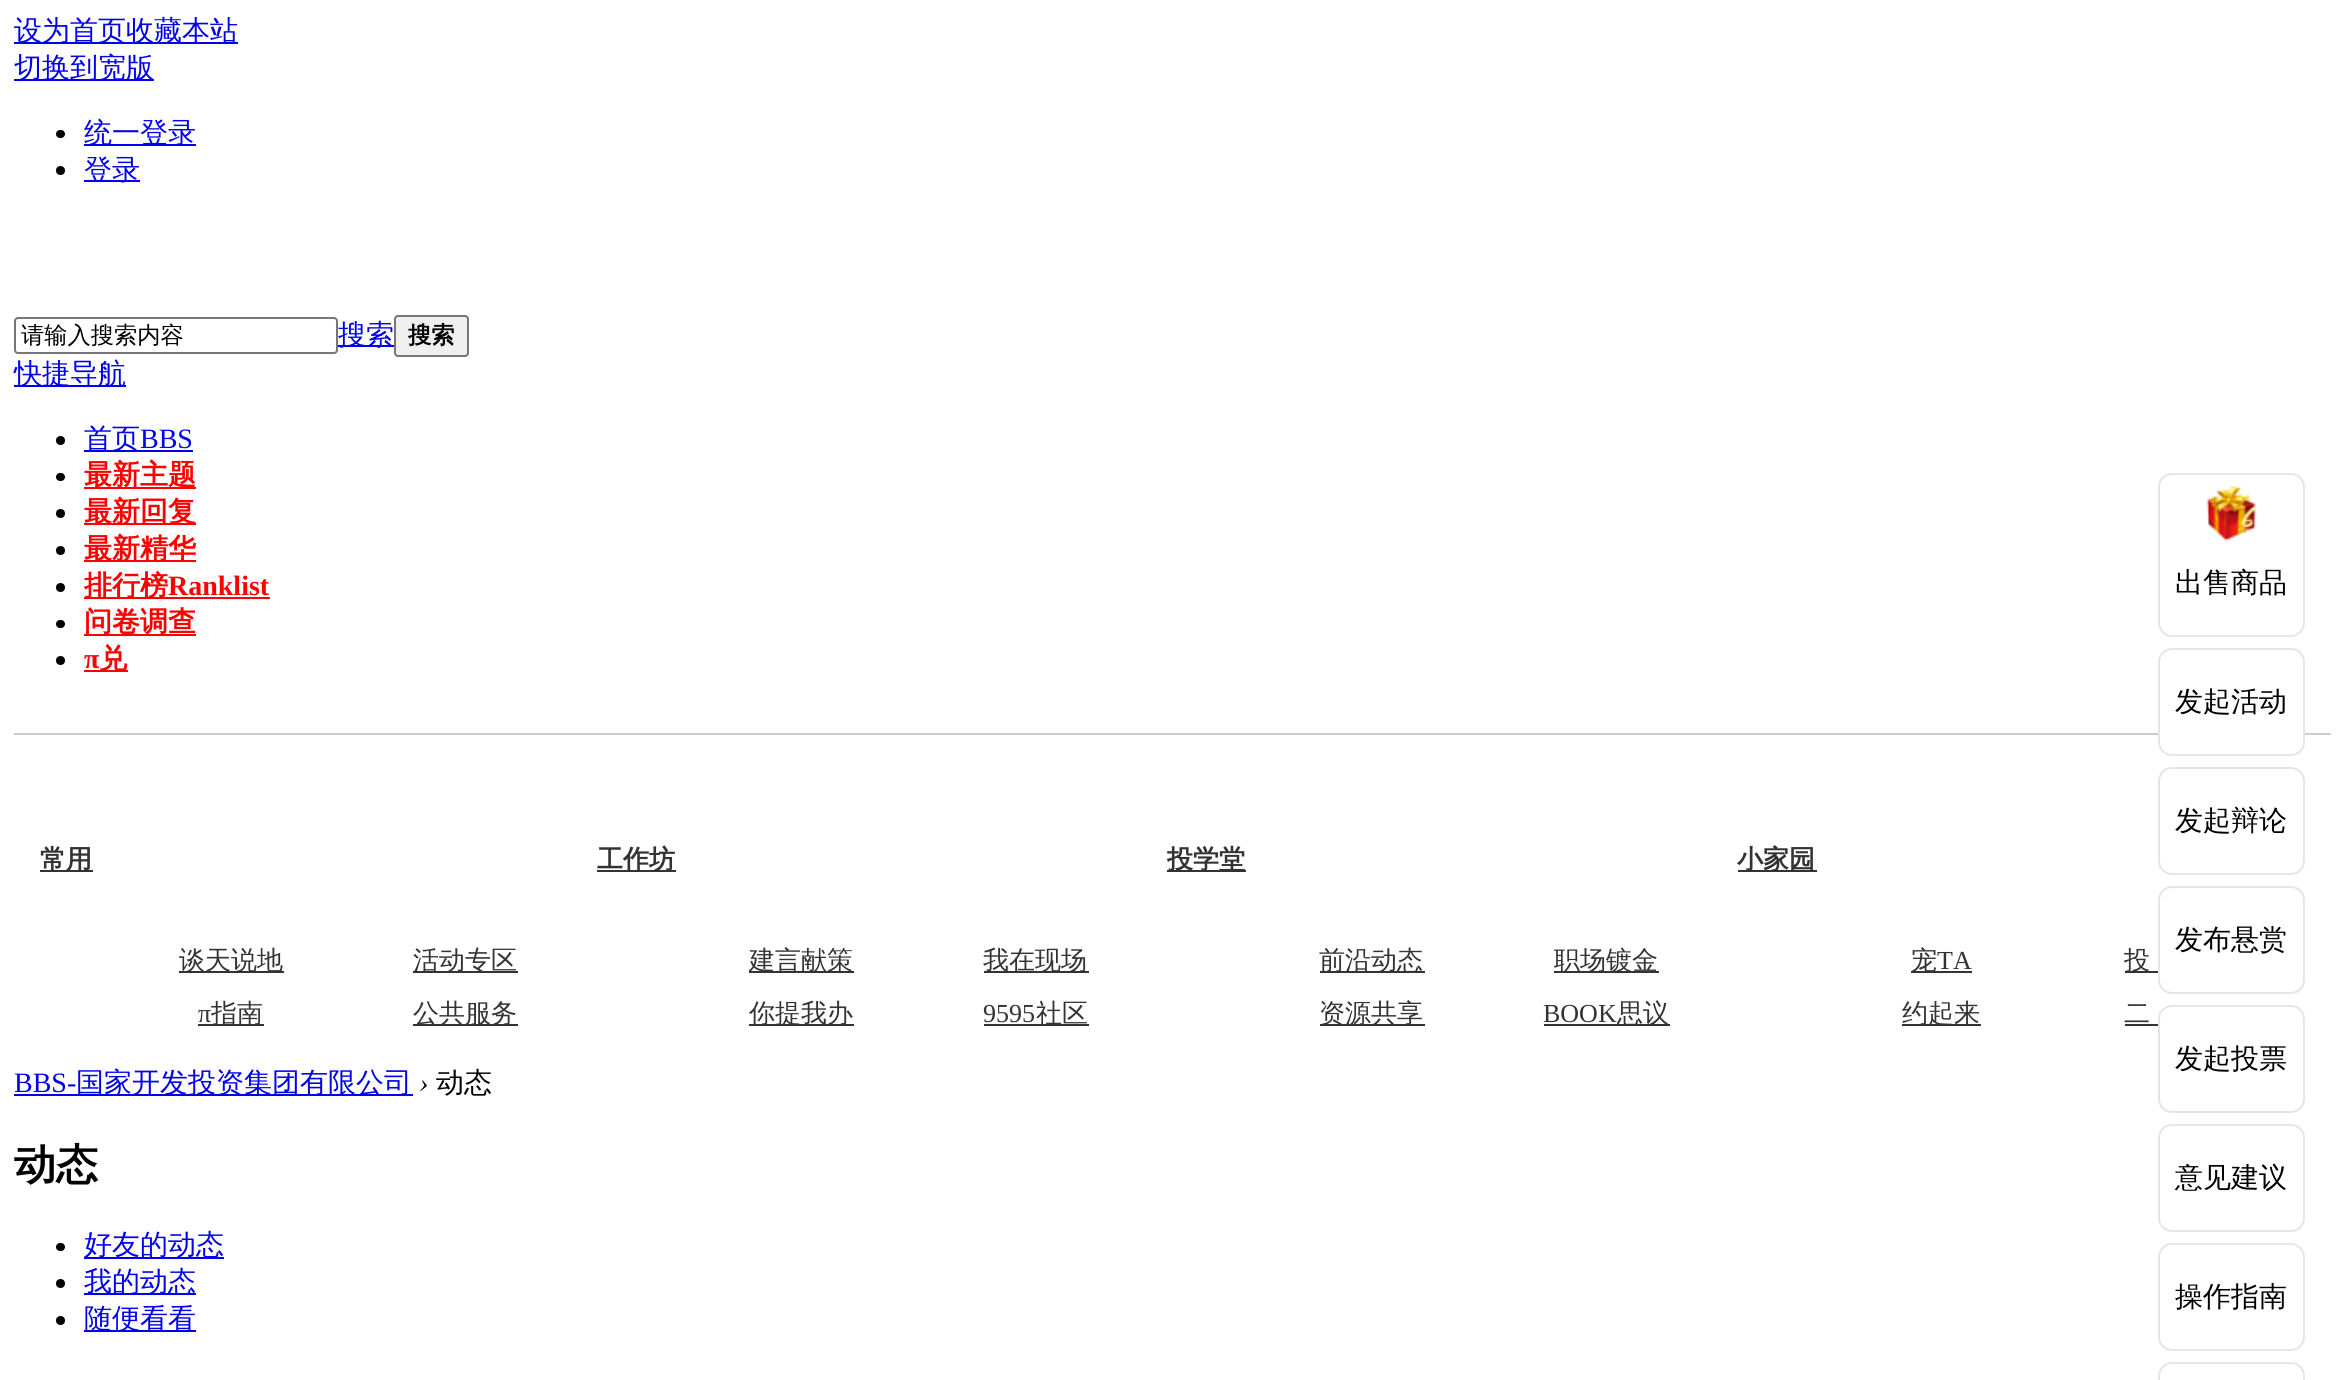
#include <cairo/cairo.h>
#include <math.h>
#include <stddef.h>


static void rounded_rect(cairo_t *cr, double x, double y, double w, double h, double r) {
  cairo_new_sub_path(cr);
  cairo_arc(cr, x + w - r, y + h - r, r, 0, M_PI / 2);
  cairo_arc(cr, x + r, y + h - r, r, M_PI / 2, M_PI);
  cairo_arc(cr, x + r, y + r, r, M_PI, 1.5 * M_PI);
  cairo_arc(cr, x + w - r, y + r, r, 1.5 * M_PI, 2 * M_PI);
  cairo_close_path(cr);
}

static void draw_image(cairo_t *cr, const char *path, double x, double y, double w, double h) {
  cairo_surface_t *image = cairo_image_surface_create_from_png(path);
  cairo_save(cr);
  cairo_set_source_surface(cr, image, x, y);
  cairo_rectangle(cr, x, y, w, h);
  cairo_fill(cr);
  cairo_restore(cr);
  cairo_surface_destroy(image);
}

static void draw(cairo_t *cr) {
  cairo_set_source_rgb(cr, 1, 1, 1);
  cairo_paint(cr);
  cairo_set_source_rgb(cr, 0, 0, 238 / 255.0);
  cairo_rectangle(cr, 14, 42, 224, 2);
  cairo_fill(cr);
  cairo_rectangle(cr, 14, 79, 140, 2);
  cairo_fill(cr);
  cairo_set_source_rgb(cr, 0, 0, 0);
  rounded_rect(cr, 56, 130, 9, 8, 4);
  cairo_fill(cr);
  cairo_set_source_rgb(cr, 0, 0, 238 / 255.0);
  cairo_rectangle(cr, 84, 144, 112, 2);
  cairo_fill(cr);
  cairo_set_source_rgb(cr, 0, 0, 0);
  cairo_arc(cr, 60.5, 170.5, 4.5, 0, 2 * M_PI);
  cairo_fill(cr);
  cairo_set_source_rgb(cr, 0, 0, 238 / 255.0);
  cairo_rectangle(cr, 84, 180, 56, 2);
  cairo_fill(cr);
  rounded_rect(cr, 15, 318, 322, 35, 3);
  cairo_set_source_rgb(cr, 118 / 255.0, 118 / 255.0, 118 / 255.0);
  cairo_stroke(cr);
  cairo_set_source_rgb(cr, 0, 0, 238 / 255.0);
  cairo_rectangle(cr, 338, 345, 56, 2);
  cairo_fill(cr);
  cairo_set_source_rgb(cr, 239 / 255.0, 239 / 255.0, 239 / 255.0);
  rounded_rect(cr, 395, 316, 73, 40, 3);
  cairo_fill_preserve(cr);
  cairo_set_source_rgb(cr, 118 / 255.0, 118 / 255.0, 118 / 255.0);
  cairo_stroke(cr);
  cairo_set_source_rgb(cr, 0, 0, 238 / 255.0);
  cairo_rectangle(cr, 14, 385, 112, 2);
  cairo_fill(cr);
  cairo_set_source_rgb(cr, 0, 0, 0);
  cairo_arc(cr, 60.5, 440.5, 4.5, 0, 2 * M_PI);
  cairo_fill(cr);
  cairo_set_source_rgb(cr, 0, 0, 238 / 255.0);
  cairo_rectangle(cr, 84, 450, 109, 2);
  cairo_fill(cr);
  cairo_set_source_rgb(cr, 0, 0, 0);
  rounded_rect(cr, 56, 473, 9, 8, 4);
  cairo_fill(cr);
  cairo_set_source_rgb(cr, 1, 0, 0);
  cairo_rectangle(cr, 84, 487, 112, 2);
  cairo_fill(cr);
  cairo_set_source_rgb(cr, 0, 0, 0);
  cairo_arc(cr, 60.5, 513.5, 4.5, 0, 2 * M_PI);
  cairo_fill(cr);
  cairo_set_source_rgb(cr, 1, 0, 0);
  cairo_rectangle(cr, 84, 523, 112, 2);
  cairo_fill(cr);
  cairo_set_source_rgb(cr, 0, 0, 0);
  cairo_arc(cr, 60.5, 550.5, 4.5, 0, 2 * M_PI);
  cairo_fill(cr);
  cairo_set_source_rgb(cr, 1, 0, 0);
  cairo_rectangle(cr, 84, 560, 112, 2);
  cairo_fill(cr);
  cairo_set_source_rgb(cr, 0, 0, 0);
  cairo_arc(cr, 60.5, 587.5, 4.5, 0, 2 * M_PI);
  cairo_fill(cr);
  cairo_set_source_rgb(cr, 1, 0, 0);
  cairo_rectangle(cr, 84, 597, 186, 2);
  cairo_fill(cr);
  cairo_set_source_rgb(cr, 0, 0, 0);
  rounded_rect(cr, 56, 620, 9, 8, 4);
  cairo_fill(cr);
  cairo_set_source_rgb(cr, 1, 0, 0);
  cairo_rectangle(cr, 84, 634, 112, 2);
  cairo_fill(cr);
  cairo_set_source_rgb(cr, 0, 0, 0);
  cairo_arc(cr, 60.5, 660.5, 4.5, 0, 2 * M_PI);
  cairo_fill(cr);
  cairo_set_source_rgb(cr, 1, 0, 0);
  cairo_rectangle(cr, 84, 670, 44, 2);
  cairo_fill(cr);
  cairo_set_source_rgb(cr, 205 / 255.0, 205 / 255.0, 205 / 255.0);
  cairo_rectangle(cr, 14, 733, 2317, 2);
  cairo_fill(cr);
  cairo_set_source_rgb(cr, 51 / 255.0, 51 / 255.0, 51 / 255.0);
  cairo_rectangle(cr, 40, 870, 53, 2);
  cairo_fill(cr);
  cairo_rectangle(cr, 179, 971, 105, 2);
  cairo_fill(cr);
  cairo_rectangle(cr, 413, 971, 105, 2);
  cairo_fill(cr);
  cairo_rectangle(cr, 198, 1024, 66, 2);
  cairo_fill(cr);
  cairo_rectangle(cr, 413, 1024, 105, 2);
  cairo_fill(cr);
  cairo_rectangle(cr, 597, 870, 79, 2);
  cairo_fill(cr);
  cairo_rectangle(cr, 749, 971, 105, 2);
  cairo_fill(cr);
  cairo_rectangle(cr, 984, 971, 105, 2);
  cairo_fill(cr);
  cairo_rectangle(cr, 749, 1024, 105, 2);
  cairo_fill(cr);
  cairo_rectangle(cr, 984, 1024, 105, 2);
  cairo_fill(cr);
  cairo_rectangle(cr, 1167, 870, 79, 2);
  cairo_fill(cr);
  cairo_rectangle(cr, 1320, 971, 105, 2);
  cairo_fill(cr);
  cairo_rectangle(cr, 1554, 971, 105, 2);
  cairo_fill(cr);
  cairo_rectangle(cr, 1320, 1024, 105, 2);
  cairo_fill(cr);
  cairo_rectangle(cr, 1544, 1024, 126, 2);
  cairo_fill(cr);
  cairo_rectangle(cr, 1738, 870, 79, 2);
  cairo_fill(cr);
  cairo_rectangle(cr, 1911, 971, 61, 2);
  cairo_fill(cr);
  cairo_rectangle(cr, 2125, 971, 33, 2);
  cairo_fill(cr);
  cairo_rectangle(cr, 1902, 1024, 79, 2);
  cairo_fill(cr);
  cairo_rectangle(cr, 2125, 1024, 33, 2);
  cairo_fill(cr);
  rounded_rect(cr, 2159, 474, 145, 162, 13);
  cairo_set_source_rgb(cr, 227 / 255.0, 229 / 255.0, 231 / 255.0);
  cairo_stroke(cr);
  draw_image(cr, "images/1.png", 2206, 485, 51, 56);
  cairo_set_source_rgb(cr, 1, 1, 1);
  rounded_rect(cr, 2159, 649, 145, 106, 13);
  cairo_fill_preserve(cr);
  cairo_set_source_rgb(cr, 227 / 255.0, 229 / 255.0, 231 / 255.0);
  cairo_stroke(cr);
  rounded_rect(cr, 2159, 768, 145, 106, 13);
  cairo_stroke(cr);
  rounded_rect(cr, 2159, 887, 145, 106, 13);
  cairo_stroke(cr);
  rounded_rect(cr, 2159, 1006, 145, 106, 13);
  cairo_stroke(cr);
  rounded_rect(cr, 2159, 1125, 145, 106, 13);
  cairo_stroke(cr);
  rounded_rect(cr, 2159, 1244, 145, 106, 13);
  cairo_stroke(cr);
  rounded_rect(cr, 2159, 1363, 145, 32, 13);
  cairo_stroke(cr);
  cairo_set_source_rgb(cr, 0, 0, 238 / 255.0);
  cairo_rectangle(cr, 14, 1094, 399, 2);
  cairo_fill(cr);
  cairo_set_source_rgb(cr, 0, 0, 0);
  rounded_rect(cr, 56, 1243, 9, 8, 4);
  cairo_fill(cr);
  cairo_set_source_rgb(cr, 0, 0, 238 / 255.0);
  cairo_rectangle(cr, 84, 1257, 140, 2);
  cairo_fill(cr);
  cairo_set_source_rgb(cr, 0, 0, 0);
  cairo_arc(cr, 60.5, 1283.5, 4.5, 0, 2 * M_PI);
  cairo_fill(cr);
  cairo_set_source_rgb(cr, 0, 0, 238 / 255.0);
  cairo_rectangle(cr, 84, 1293, 112, 2);
  cairo_fill(cr);
  cairo_set_source_rgb(cr, 0, 0, 0);
  cairo_arc(cr, 60.5, 1320.5, 4.5, 0, 2 * M_PI);
  cairo_fill(cr);
  cairo_set_source_rgb(cr, 0, 0, 238 / 255.0);
  cairo_rectangle(cr, 84, 1330, 112, 2);
  cairo_fill(cr);
  cairo_select_font_face(cr, "WenQuanYi Zen Hei Medium", CAIRO_FONT_SLANT_NORMAL, CAIRO_FONT_WEIGHT_NORMAL);
  cairo_set_font_size(cr, 28);
  cairo_move_to(cr, 14, 40);
  cairo_show_text(cr, "设为首页收藏本站");
  cairo_move_to(cr, 14, 77);
  cairo_show_text(cr, "切换到宽版");
  cairo_move_to(cr, 84, 142);
  cairo_show_text(cr, "统一登录");
  cairo_move_to(cr, 84, 179);
  cairo_show_text(cr, "登录");
  cairo_set_font_size(cr, 23.25);
  cairo_set_source_rgb(cr, 0, 0, 0);
  cairo_move_to(cr, 21, 343);
  cairo_show_text(cr, "请输入搜索内容");
  cairo_set_font_size(cr, 28);
  cairo_set_source_rgb(cr, 0, 0, 238 / 255.0);
  cairo_move_to(cr, 338, 344);
  cairo_show_text(cr, "搜索");
  cairo_select_font_face(cr, "WenQuanYi Zen Hei", CAIRO_FONT_SLANT_NORMAL, CAIRO_FONT_WEIGHT_BOLD);
  cairo_set_font_size(cr, 23.25);
  cairo_set_source_rgb(cr, 0, 0, 0);
  cairo_move_to(cr, 408, 343);
  cairo_show_text(cr, "搜索");
  cairo_select_font_face(cr, "WenQuanYi Zen Hei Medium", CAIRO_FONT_SLANT_NORMAL, CAIRO_FONT_WEIGHT_NORMAL);
  cairo_set_font_size(cr, 28);
  cairo_set_source_rgb(cr, 0, 0, 238 / 255.0);
  cairo_move_to(cr, 14, 383);
  cairo_show_text(cr, "快捷导航");
  cairo_move_to(cr, 84, 448);
  cairo_show_text(cr, "首页");
  cairo_select_font_face(cr, "Liberation Serif", CAIRO_FONT_SLANT_NORMAL, CAIRO_FONT_WEIGHT_NORMAL);
  cairo_move_to(cr, 140, 448);
  cairo_show_text(cr, "BBS");
  cairo_select_font_face(cr, "WenQuanYi Zen Hei", CAIRO_FONT_SLANT_NORMAL, CAIRO_FONT_WEIGHT_BOLD);
  cairo_set_source_rgb(cr, 1, 0, 0);
  cairo_move_to(cr, 84, 484);
  cairo_show_text(cr, "最新主题");
  cairo_move_to(cr, 84, 521);
  cairo_show_text(cr, "最新回复");
  cairo_move_to(cr, 84, 558);
  cairo_show_text(cr, "最新精华");
  cairo_move_to(cr, 84, 595);
  cairo_show_text(cr, "排行榜");
  cairo_select_font_face(cr, "Liberation Serif", CAIRO_FONT_SLANT_NORMAL, CAIRO_FONT_WEIGHT_BOLD);
  cairo_move_to(cr, 168, 595);
  cairo_show_text(cr, "Ranklist");
  cairo_select_font_face(cr, "WenQuanYi Zen Hei", CAIRO_FONT_SLANT_NORMAL, CAIRO_FONT_WEIGHT_BOLD);
  cairo_move_to(cr, 84, 631);
  cairo_show_text(cr, "问卷调查");
  cairo_select_font_face(cr, "Liberation Serif", CAIRO_FONT_SLANT_NORMAL, CAIRO_FONT_WEIGHT_BOLD);
  cairo_move_to(cr, 84, 668);
  cairo_show_text(cr, "π");
  cairo_select_font_face(cr, "WenQuanYi Zen Hei", CAIRO_FONT_SLANT_NORMAL, CAIRO_FONT_WEIGHT_BOLD);
  cairo_move_to(cr, 99, 668);
  cairo_show_text(cr, "兑");
  cairo_set_font_size(cr, 26);
  cairo_set_source_rgb(cr, 51 / 255.0, 51 / 255.0, 51 / 255.0);
  cairo_move_to(cr, 40, 868);
  cairo_show_text(cr, "常用");
  cairo_select_font_face(cr, "WenQuanYi Zen Hei Medium", CAIRO_FONT_SLANT_NORMAL, CAIRO_FONT_WEIGHT_NORMAL);
  cairo_move_to(cr, 179, 969);
  cairo_show_text(cr, "谈天说地");
  cairo_move_to(cr, 413, 969);
  cairo_show_text(cr, "活动专区");
  cairo_select_font_face(cr, "Liberation Serif", CAIRO_FONT_SLANT_NORMAL, CAIRO_FONT_WEIGHT_NORMAL);
  cairo_move_to(cr, 198, 1022);
  cairo_show_text(cr, "π");
  cairo_select_font_face(cr, "WenQuanYi Zen Hei Medium", CAIRO_FONT_SLANT_NORMAL, CAIRO_FONT_WEIGHT_NORMAL);
  cairo_move_to(cr, 211, 1022);
  cairo_show_text(cr, "指南");
  cairo_move_to(cr, 413, 1022);
  cairo_show_text(cr, "公共服务");
  cairo_select_font_face(cr, "WenQuanYi Zen Hei", CAIRO_FONT_SLANT_NORMAL, CAIRO_FONT_WEIGHT_BOLD);
  cairo_move_to(cr, 597, 868);
  cairo_show_text(cr, "工作坊");
  cairo_select_font_face(cr, "WenQuanYi Zen Hei Medium", CAIRO_FONT_SLANT_NORMAL, CAIRO_FONT_WEIGHT_NORMAL);
  cairo_move_to(cr, 749, 969);
  cairo_show_text(cr, "建言献策");
  cairo_move_to(cr, 983, 969);
  cairo_show_text(cr, "我在现场");
  cairo_move_to(cr, 749, 1022);
  cairo_show_text(cr, "你提我办");
  cairo_select_font_face(cr, "Liberation Serif", CAIRO_FONT_SLANT_NORMAL, CAIRO_FONT_WEIGHT_NORMAL);
  cairo_move_to(cr, 983, 1022);
  cairo_show_text(cr, "9595");
  cairo_select_font_face(cr, "WenQuanYi Zen Hei Medium", CAIRO_FONT_SLANT_NORMAL, CAIRO_FONT_WEIGHT_NORMAL);
  cairo_move_to(cr, 1036, 1022);
  cairo_show_text(cr, "社区");
  cairo_select_font_face(cr, "WenQuanYi Zen Hei", CAIRO_FONT_SLANT_NORMAL, CAIRO_FONT_WEIGHT_BOLD);
  cairo_move_to(cr, 1167, 868);
  cairo_show_text(cr, "投学堂");
  cairo_select_font_face(cr, "WenQuanYi Zen Hei Medium", CAIRO_FONT_SLANT_NORMAL, CAIRO_FONT_WEIGHT_NORMAL);
  cairo_move_to(cr, 1319, 969);
  cairo_show_text(cr, "前沿动态");
  cairo_move_to(cr, 1554, 969);
  cairo_show_text(cr, "职场镀金");
  cairo_move_to(cr, 1319, 1022);
  cairo_show_text(cr, "资源共享");
  cairo_select_font_face(cr, "Liberation Serif", CAIRO_FONT_SLANT_NORMAL, CAIRO_FONT_WEIGHT_NORMAL);
  cairo_move_to(cr, 1543, 1022);
  cairo_show_text(cr, "BOOK");
  cairo_select_font_face(cr, "WenQuanYi Zen Hei Medium", CAIRO_FONT_SLANT_NORMAL, CAIRO_FONT_WEIGHT_NORMAL);
  cairo_move_to(cr, 1617, 1022);
  cairo_show_text(cr, "思议");
  cairo_select_font_face(cr, "WenQuanYi Zen Hei", CAIRO_FONT_SLANT_NORMAL, CAIRO_FONT_WEIGHT_BOLD);
  cairo_move_to(cr, 1737, 868);
  cairo_show_text(cr, "小家园");
  cairo_select_font_face(cr, "WenQuanYi Zen Hei Medium", CAIRO_FONT_SLANT_NORMAL, CAIRO_FONT_WEIGHT_NORMAL);
  cairo_move_to(cr, 1911, 969);
  cairo_show_text(cr, "宠");
  cairo_select_font_face(cr, "Liberation Serif", CAIRO_FONT_SLANT_NORMAL, CAIRO_FONT_WEIGHT_NORMAL);
  cairo_move_to(cr, 1937, 969);
  cairo_show_text(cr, "TA");
  cairo_select_font_face(cr, "WenQuanYi Zen Hei Medium", CAIRO_FONT_SLANT_NORMAL, CAIRO_FONT_WEIGHT_NORMAL);
  cairo_move_to(cr, 2124, 969);
  cairo_show_text(cr, "投");
  cairo_move_to(cr, 1902, 1022);
  cairo_show_text(cr, "约起来");
  cairo_move_to(cr, 2124, 1022);
  cairo_show_text(cr, "二");
  cairo_set_font_size(cr, 28);
  cairo_set_source_rgb(cr, 0, 0, 0);
  cairo_move_to(cr, 2175, 592);
  cairo_show_text(cr, "出售商品");
  cairo_move_to(cr, 2175, 711);
  cairo_show_text(cr, "发起活动");
  cairo_move_to(cr, 2175, 830);
  cairo_show_text(cr, "发起辩论");
  cairo_move_to(cr, 2175, 949);
  cairo_show_text(cr, "发布悬赏");
  cairo_move_to(cr, 2175, 1068);
  cairo_show_text(cr, "发起投票");
  cairo_move_to(cr, 2175, 1187);
  cairo_show_text(cr, "意见建议");
  cairo_move_to(cr, 2175, 1306);
  cairo_show_text(cr, "操作指南");
  cairo_select_font_face(cr, "Liberation Serif", CAIRO_FONT_SLANT_NORMAL, CAIRO_FONT_WEIGHT_NORMAL);
  cairo_set_source_rgb(cr, 0, 0, 238 / 255.0);
  cairo_move_to(cr, 14, 1092);
  cairo_show_text(cr, "BBS-");
  cairo_select_font_face(cr, "WenQuanYi Zen Hei Medium", CAIRO_FONT_SLANT_NORMAL, CAIRO_FONT_WEIGHT_NORMAL);
  cairo_move_to(cr, 76, 1092);
  cairo_show_text(cr, "国家开发投资集团有限公司");
  cairo_select_font_face(cr, "Liberation Serif", CAIRO_FONT_SLANT_ITALIC, CAIRO_FONT_WEIGHT_NORMAL);
  cairo_set_source_rgb(cr, 0, 0, 0);
  cairo_move_to(cr, 419, 1092);
  cairo_show_text(cr, "›");
  cairo_select_font_face(cr, "WenQuanYi Zen Hei Medium", CAIRO_FONT_SLANT_NORMAL, CAIRO_FONT_WEIGHT_NORMAL);
  cairo_move_to(cr, 436, 1092);
  cairo_show_text(cr, "动态");
  cairo_select_font_face(cr, "WenQuanYi Zen Hei", CAIRO_FONT_SLANT_NORMAL, CAIRO_FONT_WEIGHT_BOLD);
  cairo_set_font_size(cr, 42);
  cairo_move_to(cr, 14, 1179);
  cairo_show_text(cr, "动态");
  cairo_select_font_face(cr, "WenQuanYi Zen Hei Medium", CAIRO_FONT_SLANT_NORMAL, CAIRO_FONT_WEIGHT_NORMAL);
  cairo_set_font_size(cr, 28);
  cairo_set_source_rgb(cr, 0, 0, 238 / 255.0);
  cairo_move_to(cr, 84, 1254);
  cairo_show_text(cr, "好友的动态");
  cairo_move_to(cr, 84, 1291);
  cairo_show_text(cr, "我的动态");
  cairo_move_to(cr, 84, 1328);
  cairo_show_text(cr, "随便看看");
}

int main(void) {
  cairo_surface_t *surface = cairo_image_surface_create(CAIRO_FORMAT_RGB24, 2347, 1380);
  cairo_t *cr = cairo_create(surface);
  cairo_font_options_t *options = cairo_font_options_create();
  cairo_font_options_set_hint_metrics(options, CAIRO_HINT_METRICS_OFF);
  cairo_font_options_set_hint_style(options, CAIRO_HINT_STYLE_NONE);
  cairo_set_font_options(cr, options);
  cairo_set_miter_limit(cr, 4);
  draw(cr);
  cairo_surface_write_to_png(surface, "out.png");
  cairo_font_options_destroy(options);
  cairo_destroy(cr);
  cairo_surface_destroy(surface);
  return 0;
}
